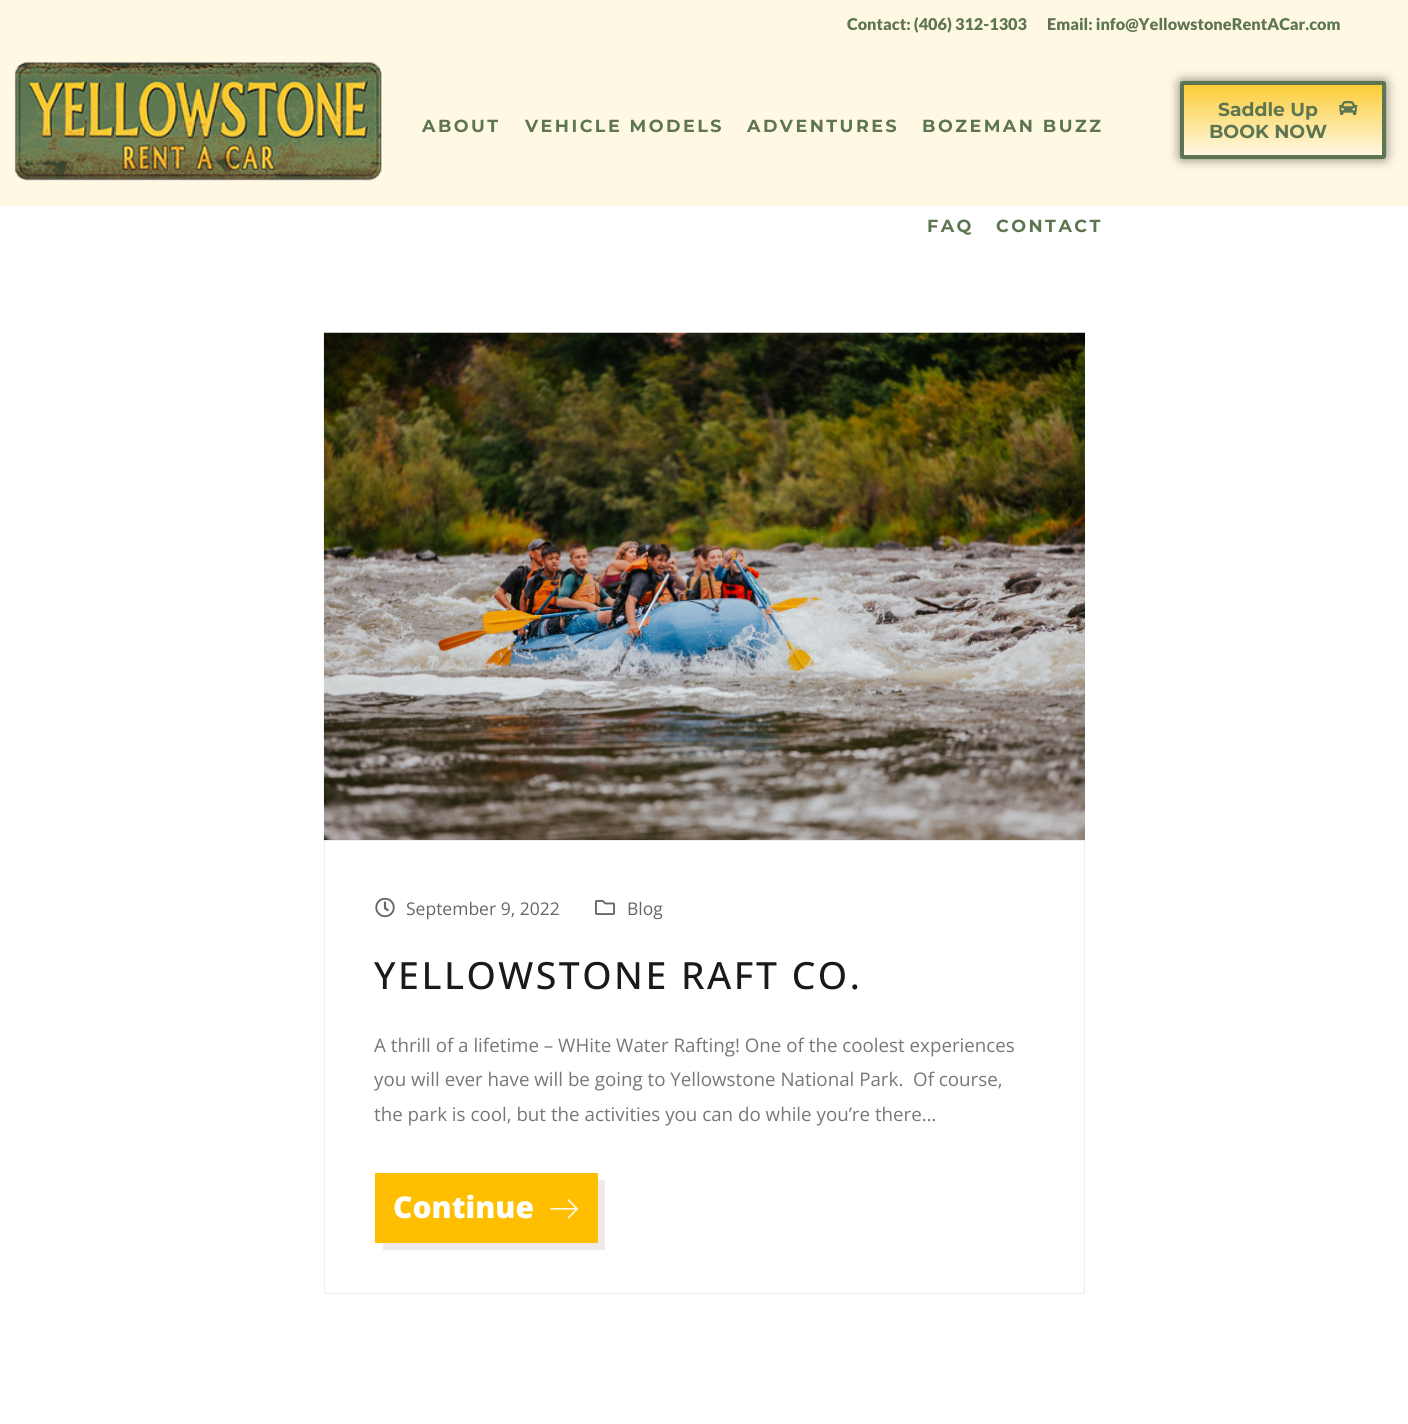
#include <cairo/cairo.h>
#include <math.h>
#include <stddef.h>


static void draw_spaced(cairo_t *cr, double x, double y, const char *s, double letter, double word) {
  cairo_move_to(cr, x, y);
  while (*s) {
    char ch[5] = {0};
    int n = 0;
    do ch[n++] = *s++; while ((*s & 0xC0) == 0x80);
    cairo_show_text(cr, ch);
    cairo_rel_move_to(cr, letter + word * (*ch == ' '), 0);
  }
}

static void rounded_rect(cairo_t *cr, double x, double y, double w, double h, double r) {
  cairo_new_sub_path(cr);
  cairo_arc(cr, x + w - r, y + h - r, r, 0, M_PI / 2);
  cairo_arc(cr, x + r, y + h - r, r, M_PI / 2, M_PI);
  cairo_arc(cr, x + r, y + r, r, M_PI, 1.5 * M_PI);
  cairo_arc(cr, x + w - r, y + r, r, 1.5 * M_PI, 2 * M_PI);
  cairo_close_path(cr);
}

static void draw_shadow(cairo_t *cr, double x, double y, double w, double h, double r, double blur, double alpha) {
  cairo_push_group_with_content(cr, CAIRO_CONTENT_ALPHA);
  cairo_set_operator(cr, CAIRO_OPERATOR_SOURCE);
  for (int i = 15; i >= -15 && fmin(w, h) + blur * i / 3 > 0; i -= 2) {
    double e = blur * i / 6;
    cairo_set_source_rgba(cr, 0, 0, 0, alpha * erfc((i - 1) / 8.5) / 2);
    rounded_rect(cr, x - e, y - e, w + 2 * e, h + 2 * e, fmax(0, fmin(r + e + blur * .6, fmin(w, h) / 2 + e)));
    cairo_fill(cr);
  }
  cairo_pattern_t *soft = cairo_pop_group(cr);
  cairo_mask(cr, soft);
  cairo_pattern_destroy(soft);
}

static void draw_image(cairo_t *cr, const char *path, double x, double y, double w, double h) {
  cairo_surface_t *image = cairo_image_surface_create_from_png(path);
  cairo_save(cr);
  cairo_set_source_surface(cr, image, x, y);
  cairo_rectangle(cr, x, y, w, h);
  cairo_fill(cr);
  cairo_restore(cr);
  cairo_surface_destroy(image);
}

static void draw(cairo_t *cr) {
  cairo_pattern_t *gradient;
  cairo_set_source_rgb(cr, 1, 1, 1);
  cairo_paint(cr);
  cairo_set_source_rgb(cr, 1, 249 / 255.0, 228 / 255.0);
  cairo_rectangle(cr, 0, 0, 1408, 206);
  cairo_fill(cr);
  draw_image(cr, "images/1.png", 14, 62, 368, 119);
  cairo_set_source_rgb(cr, 0, 0, 0);
  draw_shadow(cr, 1180, 81, 206, 78, 2.5, 6, 0.5);
  gradient = cairo_pattern_create_linear(1283, 85, 1283, 155);
  cairo_pattern_add_color_stop_rgba(gradient, 0, 251 / 255.0, 204 / 255.0, 55 / 255.0, 1);
  cairo_pattern_add_color_stop_rgba(gradient, 1, 1, 249 / 255.0, 228 / 255.0, 1);
  cairo_set_source(cr, gradient);
  cairo_pattern_destroy(gradient);
  cairo_rectangle(cr, 1184, 85, 198, 70);
  cairo_fill(cr);
  rounded_rect(cr, 1182, 83, 202, 74, 0.5);
  cairo_set_source_rgb(cr, 93 / 255.0, 117 / 255.0, 80 / 255.0);
  cairo_set_line_width(cr, 4);
  cairo_stroke(cr);
  draw_image(cr, "images/2.png", 1338, 100, 20, 15);
  draw_image(cr, "images/3.png", 323, 332, 762, 508);
  cairo_rectangle(cr, 324.5, 840.5, 760, 453);
  cairo_set_source_rgb(cr, 237 / 255.0, 237 / 255.0, 237 / 255.0);
  cairo_set_line_width(cr, 1);
  cairo_stroke(cr);
  draw_image(cr, "images/4.png", 375, 897, 20, 21);
  draw_image(cr, "images/5.png", 595, 900, 20, 15);
  cairo_set_source_rgb(cr, 239 / 255.0, 233 / 255.0, 233 / 255.0);
  cairo_new_path(cr);
  cairo_move_to(cr, 383, 1242);
  cairo_line_to(cr, 383, 1250);
  cairo_line_to(cr, 605, 1250);
  cairo_line_to(cr, 605, 1180);
  cairo_line_to(cr, 598, 1180);
  cairo_line_to(cr, 598, 1242);
  cairo_close_path(cr);
  cairo_fill(cr);
  cairo_set_source_rgb(cr, 1, 191 / 255.0, 0);
  cairo_rectangle(cr, 375, 1173, 223, 70);
  cairo_fill(cr);
  draw_image(cr, "images/6.png", 550, 1199, 28, 20);
  cairo_select_font_face(cr, "Lato Black", CAIRO_FONT_SLANT_NORMAL, CAIRO_FONT_WEIGHT_NORMAL);
  cairo_set_font_size(cr, 16.25);
  cairo_set_source_rgb(cr, 93 / 255.0, 117 / 255.0, 80 / 255.0);
  cairo_move_to(cr, 847, 30);
  cairo_show_text(cr, "Contact: (406) 312-1303");
  cairo_move_to(cr, 1047, 30);
  cairo_show_text(cr, "Email: info@YellowstoneRentACar.com");
  cairo_select_font_face(cr, "Montserrat", CAIRO_FONT_SLANT_NORMAL, CAIRO_FONT_WEIGHT_BOLD);
  cairo_set_font_size(cr, 17.5);
  draw_spaced(cr, 422, 132, "ABOUT", 2.5, 0);
  draw_spaced(cr, 525, 132, "VEHICLE MODELS", 2.5, 0);
  draw_spaced(cr, 747, 132, "ADVENTURES", 2.5, 0);
  draw_spaced(cr, 922, 132, "BOZEMAN BUZZ", 2.5, 0);
  draw_spaced(cr, 927, 232, "FAQ", 2.5, 0);
  draw_spaced(cr, 996, 232, "CONTACT", 2.5, 0);
  cairo_set_font_size(cr, 18.75);
  cairo_move_to(cr, 1218, 116);
  cairo_show_text(cr, "Saddle Up");
  cairo_move_to(cr, 1209, 138);
  cairo_show_text(cr, "BOOK NOW");
  cairo_select_font_face(cr, "Open Sans", CAIRO_FONT_SLANT_NORMAL, CAIRO_FONT_WEIGHT_NORMAL);
  cairo_set_font_size(cr, 17.5);
  cairo_set_source_rgb(cr, 102 / 255.0, 102 / 255.0, 102 / 255.0);
  cairo_move_to(cr, 406, 915);
  cairo_show_text(cr, "September 9, 2022");
  cairo_move_to(cr, 627, 915);
  cairo_show_text(cr, "Blog");
  cairo_select_font_face(cr, "Open Sans Medium", CAIRO_FONT_SLANT_NORMAL, CAIRO_FONT_WEIGHT_NORMAL);
  cairo_set_font_size(cr, 37.5);
  cairo_set_source_rgb(cr, 26 / 255.0, 26 / 255.0, 26 / 255.0);
  draw_spaced(cr, 374, 989, "YELLOWSTONE RAFT CO.", 2.5, 0);
  cairo_select_font_face(cr, "Open Sans", CAIRO_FONT_SLANT_NORMAL, CAIRO_FONT_WEIGHT_NORMAL);
  cairo_set_font_size(cr, 18.75);
  cairo_set_source_rgb(cr, 119 / 255.0, 119 / 255.0, 119 / 255.0);
  cairo_move_to(cr, 374, 1052);
  cairo_show_text(cr, "A thrill of a lifetime – WHite Water Rafting! One of the coolest experiences");
  cairo_move_to(cr, 374, 1086);
  cairo_show_text(cr, "you will ever have will be going to Yellowstone National Park.  Of course,");
  cairo_move_to(cr, 374, 1121);
  cairo_show_text(cr, "the park is cool, but the activities you can do while you’re there…");
  cairo_select_font_face(cr, "Open Sans ExtraBold", CAIRO_FONT_SLANT_NORMAL, CAIRO_FONT_WEIGHT_NORMAL);
  cairo_set_font_size(cr, 30);
  cairo_set_source_rgb(cr, 1, 1, 1);
  cairo_move_to(cr, 393, 1218);
  cairo_show_text(cr, "Continue");
}

int main(void) {
  cairo_surface_t *surface = cairo_image_surface_create(CAIRO_FORMAT_RGB24, 1408, 1424);
  cairo_t *cr = cairo_create(surface);
  cairo_font_options_t *options = cairo_font_options_create();
  cairo_font_options_set_hint_metrics(options, CAIRO_HINT_METRICS_OFF);
  cairo_font_options_set_hint_style(options, CAIRO_HINT_STYLE_NONE);
  cairo_set_font_options(cr, options);
  cairo_set_miter_limit(cr, 4);
  draw(cr);
  cairo_surface_write_to_png(surface, "out.png");
  cairo_font_options_destroy(options);
  cairo_destroy(cr);
  cairo_surface_destroy(surface);
  return 0;
}
